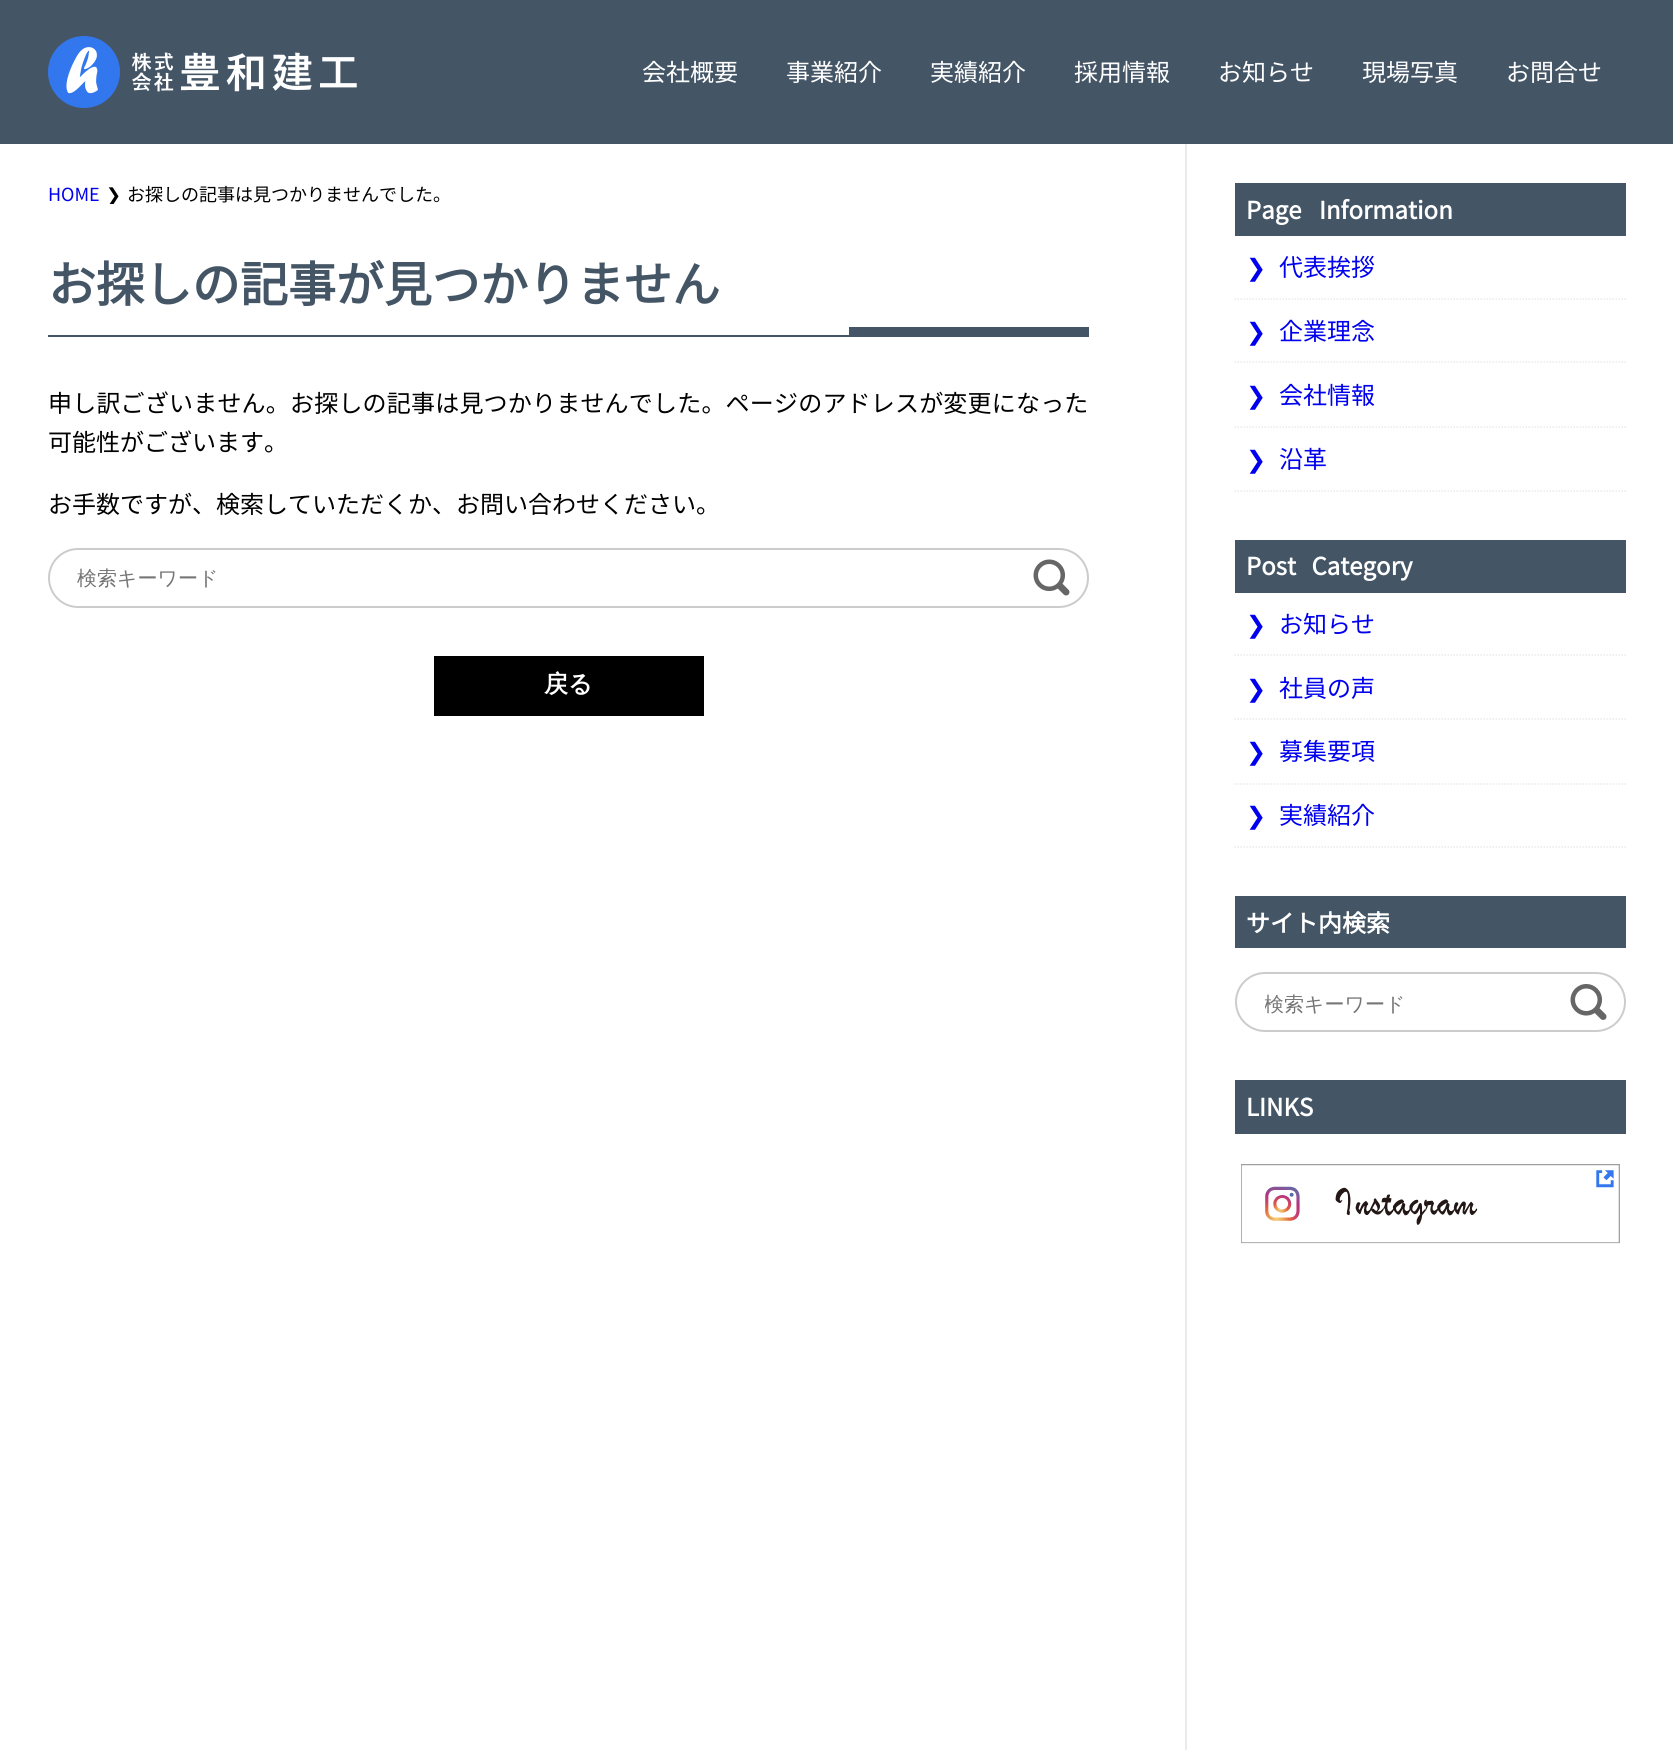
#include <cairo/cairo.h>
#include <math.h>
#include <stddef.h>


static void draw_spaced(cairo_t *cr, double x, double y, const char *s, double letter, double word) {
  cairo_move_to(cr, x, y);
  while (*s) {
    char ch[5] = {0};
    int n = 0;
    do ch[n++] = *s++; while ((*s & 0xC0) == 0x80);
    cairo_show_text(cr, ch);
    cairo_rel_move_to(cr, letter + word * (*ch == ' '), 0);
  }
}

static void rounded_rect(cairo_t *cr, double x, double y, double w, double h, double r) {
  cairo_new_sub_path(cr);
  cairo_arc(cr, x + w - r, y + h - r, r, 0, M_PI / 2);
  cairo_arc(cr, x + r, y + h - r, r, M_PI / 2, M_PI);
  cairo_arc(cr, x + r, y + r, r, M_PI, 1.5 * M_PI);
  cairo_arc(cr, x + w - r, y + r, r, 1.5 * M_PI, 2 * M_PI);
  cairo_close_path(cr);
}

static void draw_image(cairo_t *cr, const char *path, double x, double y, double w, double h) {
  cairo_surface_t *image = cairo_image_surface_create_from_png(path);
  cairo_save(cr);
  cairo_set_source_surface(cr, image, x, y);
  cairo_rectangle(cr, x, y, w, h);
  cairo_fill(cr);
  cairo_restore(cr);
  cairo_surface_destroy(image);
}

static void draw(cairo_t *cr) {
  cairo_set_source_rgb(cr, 1, 1, 1);
  cairo_paint(cr);
  cairo_set_source_rgb(cr, 68 / 255.0, 85 / 255.0, 102 / 255.0);
  cairo_rectangle(cr, 0, 0, 1673, 144);
  cairo_fill(cr);
  draw_image(cr, "images/1.png", 48, 36, 72, 72);
  draw_image(cr, "images/2.png", 132, 52, 225, 40);
  cairo_rectangle(cr, 48, 335, 1041, 2);
  cairo_fill(cr);
  cairo_rectangle(cr, 849, 327, 240, 8);
  cairo_fill(cr);
  draw_image(cr, "images/3.png", 1033, 559, 37, 37);
  rounded_rect(cr, 49, 549, 1039, 58, 29);
  cairo_set_source_rgb(cr, 204 / 255.0, 204 / 255.0, 204 / 255.0);
  cairo_stroke(cr);
  cairo_set_source_rgb(cr, 0, 0, 0);
  cairo_rectangle(cr, 434, 656, 270, 60);
  cairo_fill(cr);
  cairo_set_source_rgb(cr, 234 / 255.0, 234 / 255.0, 234 / 255.0);
  cairo_rectangle(cr, 1185, 144, 2, 1606);
  cairo_fill(cr);
  cairo_set_source_rgb(cr, 68 / 255.0, 85 / 255.0, 102 / 255.0);
  cairo_rectangle(cr, 1235, 183, 391, 53);
  cairo_fill(cr);
  cairo_new_path(cr);
  cairo_move_to(cr, 1234.5, 299);
  cairo_line_to(cr, 1626, 299);
  cairo_set_source_rgb(cr, 234 / 255.0, 234 / 255.0, 234 / 255.0);
  cairo_set_line_width(cr, 1.5);
  cairo_set_dash(cr, (double[]){1.5, 1.5}, 2, 0);
  cairo_stroke(cr);
  cairo_new_path(cr);
  cairo_move_to(cr, 1234.5, 362);
  cairo_line_to(cr, 1626, 362);
  cairo_stroke(cr);
  cairo_new_path(cr);
  cairo_move_to(cr, 1234.5, 427);
  cairo_line_to(cr, 1626, 427);
  cairo_stroke(cr);
  cairo_new_path(cr);
  cairo_move_to(cr, 1234.5, 491);
  cairo_line_to(cr, 1626, 491);
  cairo_stroke(cr);
  cairo_set_source_rgb(cr, 68 / 255.0, 85 / 255.0, 102 / 255.0);
  cairo_rectangle(cr, 1235, 540, 391, 53);
  cairo_fill(cr);
  cairo_new_path(cr);
  cairo_move_to(cr, 1234.5, 655);
  cairo_line_to(cr, 1626, 655);
  cairo_set_source_rgb(cr, 234 / 255.0, 234 / 255.0, 234 / 255.0);
  cairo_stroke(cr);
  cairo_new_path(cr);
  cairo_move_to(cr, 1234.5, 719);
  cairo_line_to(cr, 1626, 719);
  cairo_stroke(cr);
  cairo_new_path(cr);
  cairo_move_to(cr, 1234.5, 784);
  cairo_line_to(cr, 1626, 784);
  cairo_stroke(cr);
  cairo_new_path(cr);
  cairo_move_to(cr, 1234.5, 847);
  cairo_line_to(cr, 1626, 847);
  cairo_stroke(cr);
  cairo_set_source_rgb(cr, 68 / 255.0, 85 / 255.0, 102 / 255.0);
  cairo_rectangle(cr, 1235, 896, 391, 52);
  cairo_fill(cr);
  draw_image(cr, "images/4.png", 1570, 984, 37, 36);
  rounded_rect(cr, 1236, 973, 389, 58, 29);
  cairo_set_source_rgb(cr, 204 / 255.0, 204 / 255.0, 204 / 255.0);
  cairo_set_line_width(cr, 2);
  cairo_set_dash(cr, NULL, 0, 0);
  cairo_stroke(cr);
  cairo_set_source_rgb(cr, 68 / 255.0, 85 / 255.0, 102 / 255.0);
  cairo_rectangle(cr, 1235, 1080, 391, 54);
  cairo_fill(cr);
  draw_image(cr, "images/5.png", 1241, 1164, 379, 80);
  cairo_select_font_face(cr, "Noto Sans JP", CAIRO_FONT_SLANT_NORMAL, CAIRO_FONT_WEIGHT_NORMAL);
  cairo_set_font_size(cr, 24);
  cairo_set_source_rgb(cr, 1, 1, 1);
  cairo_move_to(cr, 642, 81);
  cairo_show_text(cr, "会社概要");
  cairo_move_to(cr, 786, 81);
  cairo_show_text(cr, "事業紹介");
  cairo_move_to(cr, 930, 81);
  cairo_show_text(cr, "実績紹介");
  cairo_move_to(cr, 1074, 81);
  cairo_show_text(cr, "採用情報");
  cairo_move_to(cr, 1218, 81);
  cairo_show_text(cr, "お知らせ");
  cairo_move_to(cr, 1362, 81);
  cairo_show_text(cr, "現場写真");
  cairo_move_to(cr, 1506, 81);
  cairo_show_text(cr, "お問合せ");
  cairo_set_font_size(cr, 18);
  cairo_set_source_rgb(cr, 0, 0, 238 / 255.0);
  cairo_move_to(cr, 48, 201);
  cairo_show_text(cr, "HOME");
  cairo_save(cr);
  cairo_rectangle(cr, 48, 183, 80, 21);
  cairo_clip(cr);
  cairo_select_font_face(cr, "DejaVu Sans", CAIRO_FONT_SLANT_NORMAL, CAIRO_FONT_WEIGHT_NORMAL);
  cairo_set_source_rgb(cr, 0, 0, 0);
  cairo_move_to(cr, 106, 201);
  cairo_show_text(cr, "❯");
  cairo_restore(cr);
  cairo_set_source_rgb(cr, 0, 0, 0);
  cairo_move_to(cr, 127, 201);
  cairo_show_text(cr, "お探しの記事は見つかりませんでした。");
  cairo_select_font_face(cr, "Noto Sans JP", CAIRO_FONT_SLANT_NORMAL, CAIRO_FONT_WEIGHT_BOLD);
  cairo_set_font_size(cr, 48);
  cairo_set_source_rgb(cr, 68 / 255.0, 85 / 255.0, 102 / 255.0);
  cairo_move_to(cr, 48, 302);
  cairo_show_text(cr, "お探しの記事が見つかりません");
  cairo_select_font_face(cr, "Noto Sans JP", CAIRO_FONT_SLANT_NORMAL, CAIRO_FONT_WEIGHT_NORMAL);
  cairo_set_font_size(cr, 24);
  cairo_set_source_rgb(cr, 0, 0, 0);
  draw_spaced(cr, 48, 412, "申し訳ございません。お探しの記事は見つかりませんでした。ページのアドレスが変更になった", 0.2, 0);
  cairo_move_to(cr, 48, 451);
  cairo_show_text(cr, "可能性がございます。");
  cairo_move_to(cr, 48, 513);
  cairo_show_text(cr, "お手数ですが、検索していただくか、お問い合わせください。");
  cairo_select_font_face(cr, "WenQuanYi Zen Hei Medium", CAIRO_FONT_SLANT_NORMAL, CAIRO_FONT_WEIGHT_NORMAL);
  cairo_set_font_size(cr, 20);
  cairo_set_source_rgb(cr, 117 / 255.0, 117 / 255.0, 117 / 255.0);
  cairo_move_to(cr, 77, 585);
  cairo_show_text(cr, "検索キーワード");
  cairo_select_font_face(cr, "WenQuanYi Zen Hei", CAIRO_FONT_SLANT_NORMAL, CAIRO_FONT_WEIGHT_BOLD);
  cairo_set_font_size(cr, 24);
  cairo_set_source_rgb(cr, 1, 1, 1);
  cairo_move_to(cr, 544, 692);
  cairo_show_text(cr, "戻る");
  cairo_select_font_face(cr, "Noto Sans JP", CAIRO_FONT_SLANT_NORMAL, CAIRO_FONT_WEIGHT_BOLD);
  draw_spaced(cr, 1246, 219, "Page Information", 0, 12);
  cairo_select_font_face(cr, "DejaVu Sans", CAIRO_FONT_SLANT_NORMAL, CAIRO_FONT_WEIGHT_NORMAL);
  cairo_set_source_rgb(cr, 0, 0, 238 / 255.0);
  cairo_move_to(cr, 1246, 276);
  cairo_show_text(cr, "❯");
  cairo_select_font_face(cr, "Noto Sans JP", CAIRO_FONT_SLANT_NORMAL, CAIRO_FONT_WEIGHT_NORMAL);
  cairo_move_to(cr, 1279, 276);
  cairo_show_text(cr, "代表挨拶");
  cairo_select_font_face(cr, "DejaVu Sans", CAIRO_FONT_SLANT_NORMAL, CAIRO_FONT_WEIGHT_NORMAL);
  cairo_move_to(cr, 1246, 340);
  cairo_show_text(cr, "❯");
  cairo_select_font_face(cr, "Noto Sans JP", CAIRO_FONT_SLANT_NORMAL, CAIRO_FONT_WEIGHT_NORMAL);
  cairo_move_to(cr, 1279, 340);
  cairo_show_text(cr, "企業理念");
  cairo_select_font_face(cr, "DejaVu Sans", CAIRO_FONT_SLANT_NORMAL, CAIRO_FONT_WEIGHT_NORMAL);
  cairo_move_to(cr, 1246, 404);
  cairo_show_text(cr, "❯");
  cairo_select_font_face(cr, "Noto Sans JP", CAIRO_FONT_SLANT_NORMAL, CAIRO_FONT_WEIGHT_NORMAL);
  cairo_move_to(cr, 1279, 404);
  cairo_show_text(cr, "会社情報");
  cairo_select_font_face(cr, "DejaVu Sans", CAIRO_FONT_SLANT_NORMAL, CAIRO_FONT_WEIGHT_NORMAL);
  cairo_move_to(cr, 1246, 468);
  cairo_show_text(cr, "❯");
  cairo_select_font_face(cr, "Noto Sans JP", CAIRO_FONT_SLANT_NORMAL, CAIRO_FONT_WEIGHT_NORMAL);
  cairo_move_to(cr, 1279, 468);
  cairo_show_text(cr, "沿革");
  cairo_select_font_face(cr, "Noto Sans JP", CAIRO_FONT_SLANT_NORMAL, CAIRO_FONT_WEIGHT_BOLD);
  cairo_set_source_rgb(cr, 1, 1, 1);
  draw_spaced(cr, 1246, 575, "Post Category", 0, 10);
  cairo_select_font_face(cr, "DejaVu Sans", CAIRO_FONT_SLANT_NORMAL, CAIRO_FONT_WEIGHT_NORMAL);
  cairo_set_source_rgb(cr, 0, 0, 238 / 255.0);
  cairo_move_to(cr, 1246, 633);
  cairo_show_text(cr, "❯");
  cairo_select_font_face(cr, "Noto Sans JP", CAIRO_FONT_SLANT_NORMAL, CAIRO_FONT_WEIGHT_NORMAL);
  cairo_move_to(cr, 1279, 633);
  cairo_show_text(cr, "お知らせ");
  cairo_select_font_face(cr, "DejaVu Sans", CAIRO_FONT_SLANT_NORMAL, CAIRO_FONT_WEIGHT_NORMAL);
  cairo_move_to(cr, 1246, 697);
  cairo_show_text(cr, "❯");
  cairo_select_font_face(cr, "Noto Sans JP", CAIRO_FONT_SLANT_NORMAL, CAIRO_FONT_WEIGHT_NORMAL);
  cairo_move_to(cr, 1279, 697);
  cairo_show_text(cr, "社員の声");
  cairo_select_font_face(cr, "DejaVu Sans", CAIRO_FONT_SLANT_NORMAL, CAIRO_FONT_WEIGHT_NORMAL);
  cairo_move_to(cr, 1246, 760);
  cairo_show_text(cr, "❯");
  cairo_select_font_face(cr, "Noto Sans JP", CAIRO_FONT_SLANT_NORMAL, CAIRO_FONT_WEIGHT_NORMAL);
  cairo_move_to(cr, 1279, 760);
  cairo_show_text(cr, "募集要項");
  cairo_select_font_face(cr, "DejaVu Sans", CAIRO_FONT_SLANT_NORMAL, CAIRO_FONT_WEIGHT_NORMAL);
  cairo_move_to(cr, 1246, 824);
  cairo_show_text(cr, "❯");
  cairo_select_font_face(cr, "Noto Sans JP", CAIRO_FONT_SLANT_NORMAL, CAIRO_FONT_WEIGHT_NORMAL);
  cairo_move_to(cr, 1279, 824);
  cairo_show_text(cr, "実績紹介");
  cairo_select_font_face(cr, "Noto Sans JP", CAIRO_FONT_SLANT_NORMAL, CAIRO_FONT_WEIGHT_BOLD);
  cairo_set_source_rgb(cr, 1, 1, 1);
  cairo_move_to(cr, 1246, 932);
  cairo_show_text(cr, "サイト内検索");
  cairo_save(cr);
  cairo_rectangle(cr, 1265, 992, 289, 27);
  cairo_clip(cr);
  cairo_select_font_face(cr, "WenQuanYi Zen Hei Medium", CAIRO_FONT_SLANT_NORMAL, CAIRO_FONT_WEIGHT_NORMAL);
  cairo_set_font_size(cr, 20);
  cairo_set_source_rgb(cr, 117 / 255.0, 117 / 255.0, 117 / 255.0);
  cairo_move_to(cr, 1264, 1011);
  cairo_show_text(cr, "検索キーワード");
  cairo_restore(cr);
  cairo_move_to(cr, 1246, 1116);
  cairo_show_text(cr, "LINKS");
}

int main(void) {
  cairo_surface_t *surface = cairo_image_surface_create(CAIRO_FORMAT_RGB24, 1673, 1750);
  cairo_t *cr = cairo_create(surface);
  cairo_font_options_t *options = cairo_font_options_create();
  cairo_font_options_set_hint_metrics(options, CAIRO_HINT_METRICS_OFF);
  cairo_font_options_set_hint_style(options, CAIRO_HINT_STYLE_NONE);
  cairo_set_font_options(cr, options);
  cairo_set_miter_limit(cr, 4);
  draw(cr);
  cairo_surface_write_to_png(surface, "out.png");
  cairo_font_options_destroy(options);
  cairo_destroy(cr);
  cairo_surface_destroy(surface);
  return 0;
}
